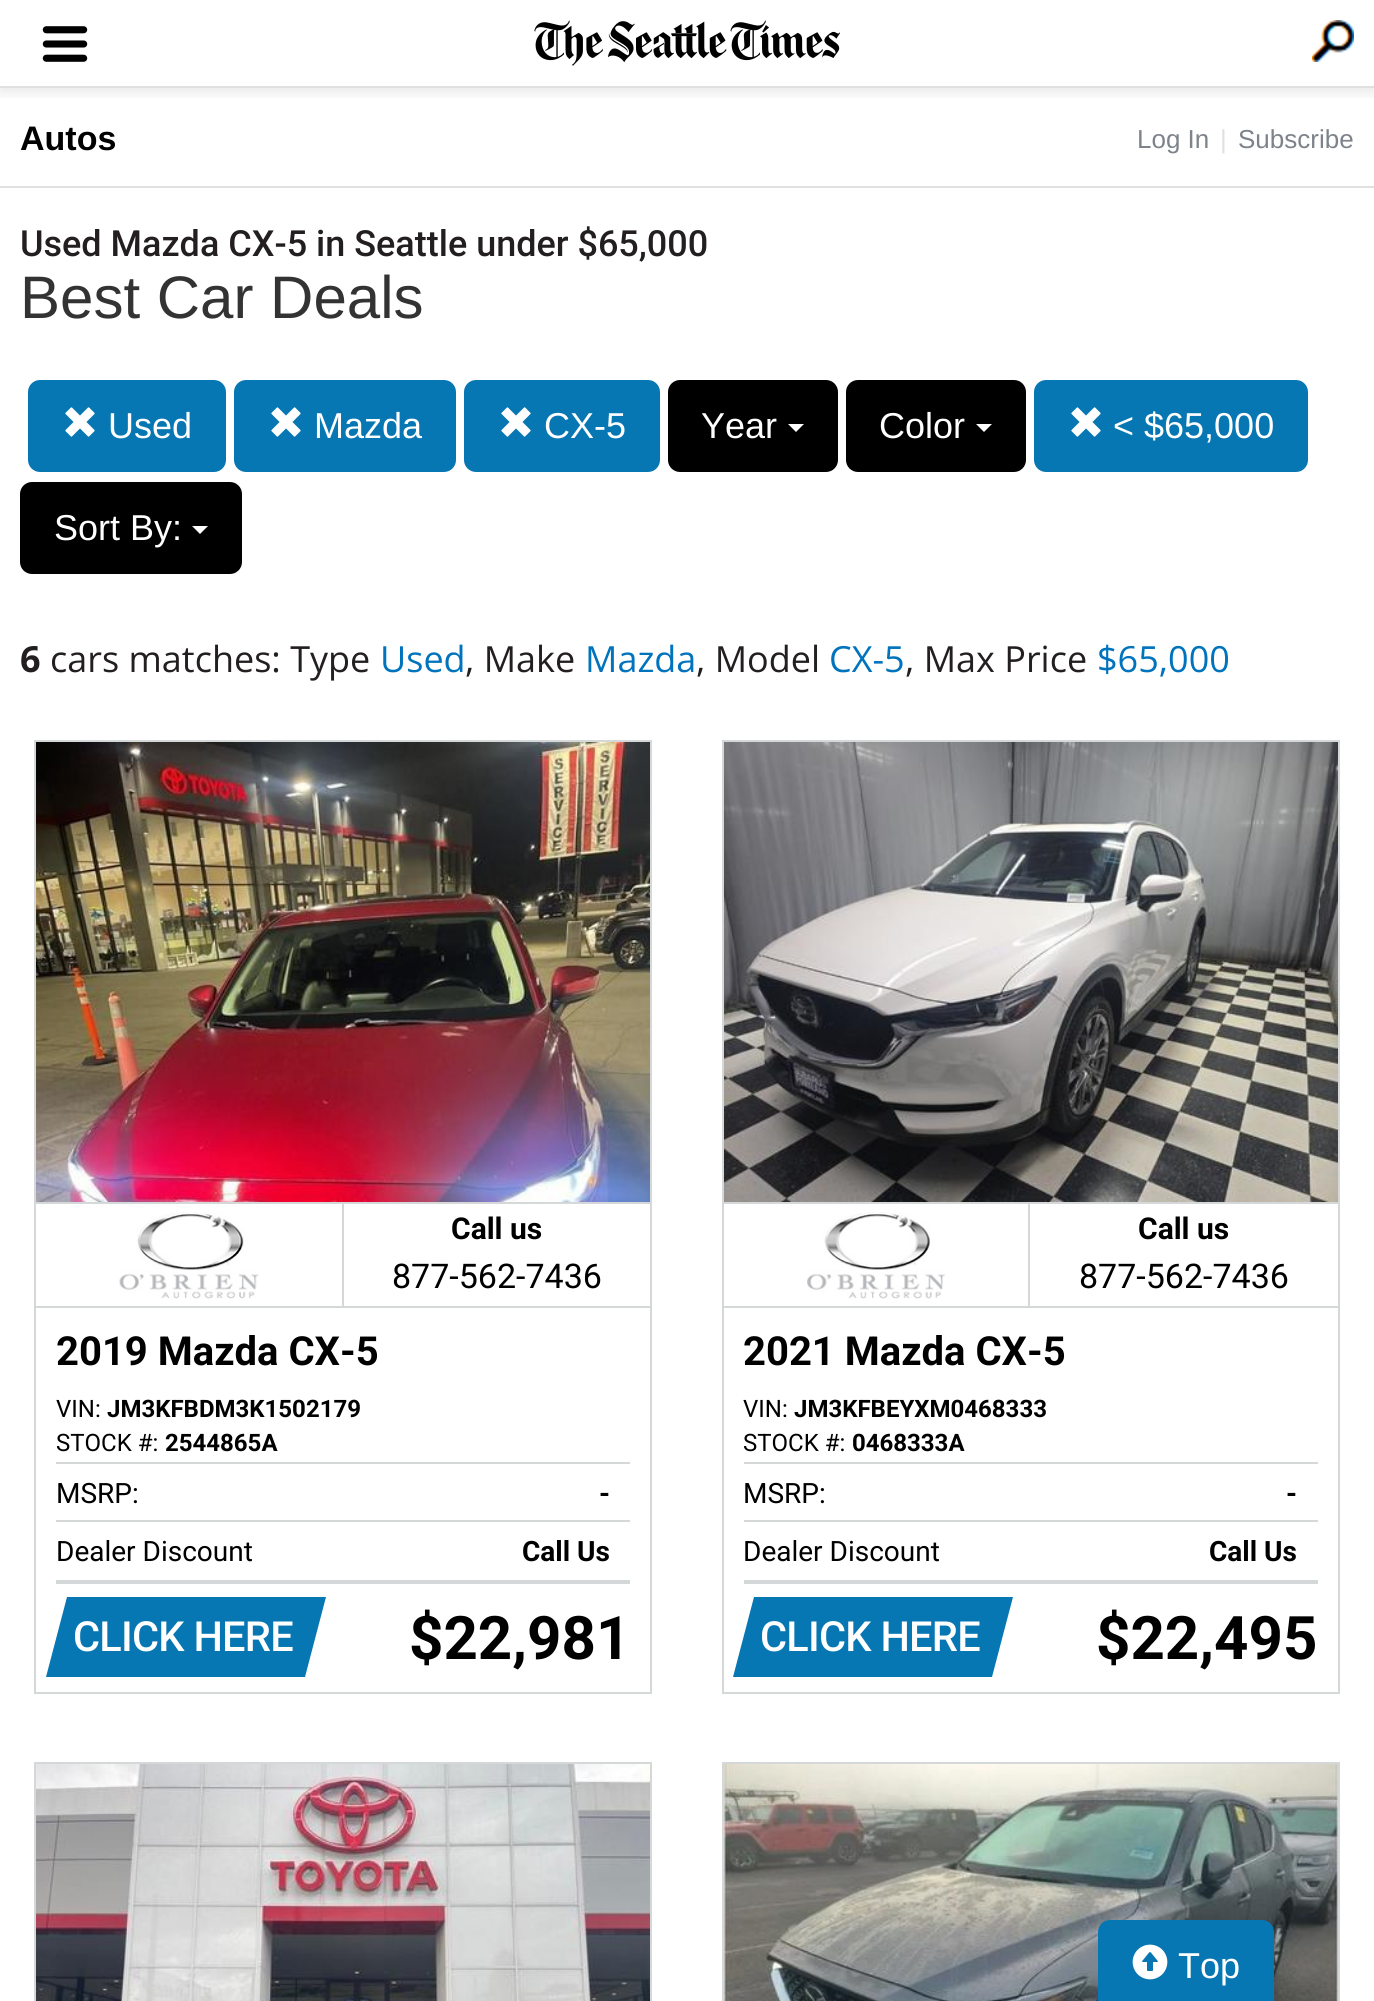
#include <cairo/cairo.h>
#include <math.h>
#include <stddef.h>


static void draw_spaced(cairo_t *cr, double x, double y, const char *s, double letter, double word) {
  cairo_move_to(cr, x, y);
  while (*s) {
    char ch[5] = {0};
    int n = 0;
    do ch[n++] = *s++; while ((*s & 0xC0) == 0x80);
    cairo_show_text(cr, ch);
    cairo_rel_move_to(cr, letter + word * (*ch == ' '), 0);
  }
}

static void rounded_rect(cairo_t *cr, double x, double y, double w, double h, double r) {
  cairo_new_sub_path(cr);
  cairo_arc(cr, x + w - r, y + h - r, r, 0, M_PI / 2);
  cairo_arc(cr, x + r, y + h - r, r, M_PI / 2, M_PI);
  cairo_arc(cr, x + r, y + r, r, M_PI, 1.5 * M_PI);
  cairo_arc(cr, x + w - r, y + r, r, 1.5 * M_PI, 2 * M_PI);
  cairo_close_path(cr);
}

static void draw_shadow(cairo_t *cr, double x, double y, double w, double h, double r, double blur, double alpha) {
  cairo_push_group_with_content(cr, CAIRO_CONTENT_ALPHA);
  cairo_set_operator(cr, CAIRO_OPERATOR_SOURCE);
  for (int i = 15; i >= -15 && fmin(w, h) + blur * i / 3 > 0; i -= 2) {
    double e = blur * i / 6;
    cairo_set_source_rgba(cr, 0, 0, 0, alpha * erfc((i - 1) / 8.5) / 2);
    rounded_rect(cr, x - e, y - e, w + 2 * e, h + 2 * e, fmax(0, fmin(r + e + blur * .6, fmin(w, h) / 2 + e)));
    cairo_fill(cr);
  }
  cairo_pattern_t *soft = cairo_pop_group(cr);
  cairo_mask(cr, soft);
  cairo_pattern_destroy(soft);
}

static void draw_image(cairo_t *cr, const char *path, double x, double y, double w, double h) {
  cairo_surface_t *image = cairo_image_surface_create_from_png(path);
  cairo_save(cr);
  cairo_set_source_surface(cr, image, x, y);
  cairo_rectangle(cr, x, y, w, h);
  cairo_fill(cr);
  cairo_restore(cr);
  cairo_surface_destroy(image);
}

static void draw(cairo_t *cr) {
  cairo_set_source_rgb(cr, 1, 1, 1);
  cairo_paint(cr);
  cairo_save(cr);
  cairo_rectangle(cr, 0, 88, 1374, 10);
  cairo_clip(cr);
  cairo_set_source_rgb(cr, 0, 0, 0);
  draw_shadow(cr, 0, 4, 1374, 88, 0, 7, 0.1);
  cairo_restore(cr);
  cairo_set_source_rgb(cr, 224 / 255.0, 224 / 255.0, 224 / 255.0);
  cairo_rectangle(cr, 0, 86, 1374, 2);
  cairo_fill(cr);
  draw_image(cr, "images/1.png", 42, 26, 46, 36);
  draw_image(cr, "images/2.png", 534, 20, 306, 46);
  draw_image(cr, "images/3.png", 1312, 20, 42, 42);
  cairo_rectangle(cr, 0, 186, 1374, 2);
  cairo_fill(cr);
  cairo_set_source_rgb(cr, 7 / 255.0, 119 / 255.0, 179 / 255.0);
  rounded_rect(cr, 28, 380, 198, 92, 12);
  cairo_fill(cr);
  draw_image(cr, "images/4.png", 65, 407, 30, 30);
  rounded_rect(cr, 234, 380, 222, 92, 12);
  cairo_fill(cr);
  draw_image(cr, "images/4.png", 271, 407, 30, 30);
  rounded_rect(cr, 464, 380, 196, 92, 12);
  cairo_fill(cr);
  draw_image(cr, "images/4.png", 501, 407, 30, 30);
  cairo_set_source_rgb(cr, 0, 0, 0);
  rounded_rect(cr, 668, 380, 170, 92, 12);
  cairo_fill(cr);
  cairo_set_source_rgb(cr, 1, 1, 1);
  cairo_new_path(cr);
  cairo_move_to(cr, 788, 424);
  cairo_line_to(cr, 804, 424);
  cairo_line_to(cr, 796, 432);
  cairo_close_path(cr);
  cairo_fill(cr);
  cairo_set_source_rgb(cr, 0, 0, 0);
  rounded_rect(cr, 846, 380, 180, 92, 12);
  cairo_fill(cr);
  cairo_set_source_rgb(cr, 1, 1, 1);
  cairo_new_path(cr);
  cairo_move_to(cr, 976, 424);
  cairo_line_to(cr, 992, 424);
  cairo_line_to(cr, 984, 432);
  cairo_close_path(cr);
  cairo_fill(cr);
  cairo_set_source_rgb(cr, 7 / 255.0, 119 / 255.0, 179 / 255.0);
  rounded_rect(cr, 1034, 380, 274, 92, 12);
  cairo_fill(cr);
  draw_image(cr, "images/4.png", 1071, 407, 30, 30);
  cairo_set_source_rgb(cr, 0, 0, 0);
  rounded_rect(cr, 20, 482, 222, 92, 12);
  cairo_fill(cr);
  cairo_set_source_rgb(cr, 1, 1, 1);
  cairo_new_path(cr);
  cairo_move_to(cr, 192, 526);
  cairo_line_to(cr, 208, 526);
  cairo_line_to(cr, 200, 534);
  cairo_close_path(cr);
  cairo_fill(cr);
  cairo_rectangle(cr, 35, 741, 616, 952);
  cairo_set_source_rgb(cr, 212 / 255.0, 216 / 255.0, 217 / 255.0);
  cairo_stroke(cr);
  draw_image(cr, "images/5.png", 36, 742, 614, 460);
  cairo_rectangle(cr, 36, 1202, 614, 2);
  cairo_fill(cr);
  cairo_rectangle(cr, 342, 1202, 2, 106);
  cairo_fill(cr);
  cairo_rectangle(cr, 36, 1306, 614, 2);
  cairo_fill(cr);
  draw_image(cr, "images/6.png", 119, 1212, 140, 87);
  cairo_rectangle(cr, 56, 1462, 574, 2);
  cairo_fill(cr);
  cairo_rectangle(cr, 56, 1520, 574, 2);
  cairo_fill(cr);
  cairo_rectangle(cr, 56, 1580, 574, 4);
  cairo_fill(cr);
  cairo_set_source_rgb(cr, 7 / 255.0, 119 / 255.0, 179 / 255.0);
  cairo_new_path(cr);
  cairo_move_to(cr, 67, 1597);
  cairo_line_to(cr, 326, 1597);
  cairo_line_to(cr, 305, 1677);
  cairo_line_to(cr, 46, 1677);
  cairo_close_path(cr);
  cairo_fill(cr);
  cairo_rectangle(cr, 723, 741, 616, 952);
  cairo_set_source_rgb(cr, 212 / 255.0, 216 / 255.0, 217 / 255.0);
  cairo_stroke(cr);
  draw_image(cr, "images/7.png", 724, 742, 614, 460);
  cairo_rectangle(cr, 724, 1202, 614, 2);
  cairo_fill(cr);
  cairo_rectangle(cr, 1028, 1202, 2, 106);
  cairo_fill(cr);
  cairo_rectangle(cr, 724, 1306, 614, 2);
  cairo_fill(cr);
  draw_image(cr, "images/8.png", 807, 1212, 138, 87);
  cairo_rectangle(cr, 744, 1462, 574, 2);
  cairo_fill(cr);
  cairo_rectangle(cr, 744, 1520, 574, 2);
  cairo_fill(cr);
  cairo_rectangle(cr, 744, 1580, 574, 4);
  cairo_fill(cr);
  cairo_set_source_rgb(cr, 7 / 255.0, 119 / 255.0, 179 / 255.0);
  cairo_new_path(cr);
  cairo_move_to(cr, 754, 1597);
  cairo_line_to(cr, 1013, 1597);
  cairo_line_to(cr, 992, 1677);
  cairo_line_to(cr, 733, 1677);
  cairo_close_path(cr);
  cairo_fill(cr);
  cairo_rectangle(cr, 35, 1763, 616, 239);
  cairo_set_source_rgb(cr, 212 / 255.0, 216 / 255.0, 217 / 255.0);
  cairo_stroke(cr);
  draw_image(cr, "images/9.png", 36, 1764, 614, 237);
  cairo_rectangle(cr, 723, 1763, 616, 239);
  cairo_stroke(cr);
  draw_image(cr, "images/10.png", 724, 1764, 614, 237);
  cairo_set_source_rgb(cr, 7 / 255.0, 119 / 255.0, 179 / 255.0);
  rounded_rect(cr, 1099, 1921, 174, 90, 11);
  cairo_fill_preserve(cr);
  cairo_stroke(cr);
  draw_image(cr, "images/11.png", 1132, 1944, 36, 36);
  cairo_select_font_face(cr, "Liberation Sans", CAIRO_FONT_SLANT_NORMAL, CAIRO_FONT_WEIGHT_BOLD);
  cairo_set_font_size(cr, 34);
  cairo_set_source_rgb(cr, 0, 0, 0);
  cairo_move_to(cr, 20, 150);
  cairo_show_text(cr, "Autos");
  cairo_select_font_face(cr, "Liberation Sans", CAIRO_FONT_SLANT_NORMAL, CAIRO_FONT_WEIGHT_NORMAL);
  cairo_set_font_size(cr, 26);
  cairo_set_source_rgb(cr, 126 / 255.0, 131 / 255.0, 139 / 255.0);
  cairo_move_to(cr, 1137, 148);
  cairo_show_text(cr, "Log In");
  cairo_set_source_rgb(cr, 224 / 255.0, 224 / 255.0, 224 / 255.0);
  cairo_move_to(cr, 1220, 148);
  cairo_show_text(cr, "|");
  cairo_set_source_rgb(cr, 126 / 255.0, 131 / 255.0, 139 / 255.0);
  cairo_move_to(cr, 1238, 148);
  cairo_show_text(cr, "Subscribe");
  cairo_select_font_face(cr, "Roboto Medium", CAIRO_FONT_SLANT_NORMAL, CAIRO_FONT_WEIGHT_NORMAL);
  cairo_set_font_size(cr, 36);
  cairo_set_source_rgb(cr, 35 / 255.0, 31 / 255.0, 32 / 255.0);
  cairo_move_to(cr, 20, 256);
  cairo_show_text(cr, "Used Mazda CX-5 in Seattle under $65,000");
  cairo_select_font_face(cr, "Liberation Sans", CAIRO_FONT_SLANT_NORMAL, CAIRO_FONT_WEIGHT_NORMAL);
  cairo_set_font_size(cr, 60);
  cairo_set_source_rgb(cr, 51 / 255.0, 51 / 255.0, 51 / 255.0);
  cairo_move_to(cr, 20, 318);
  cairo_show_text(cr, "Best Car Deals");
  cairo_set_font_size(cr, 36);
  cairo_set_source_rgb(cr, 1, 1, 1);
  cairo_move_to(cr, 108, 438);
  cairo_show_text(cr, "Used");
  cairo_move_to(cr, 314, 438);
  cairo_show_text(cr, "Mazda");
  cairo_move_to(cr, 544, 438);
  cairo_show_text(cr, "CX-5");
  cairo_move_to(cr, 701, 438);
  cairo_show_text(cr, "Year");
  cairo_move_to(cr, 879, 438);
  cairo_show_text(cr, "Color");
  cairo_move_to(cr, 1113, 438);
  cairo_show_text(cr, "< $65,000");
  cairo_move_to(cr, 54, 540);
  cairo_show_text(cr, "Sort By:");
  cairo_select_font_face(cr, "Open Sans", CAIRO_FONT_SLANT_NORMAL, CAIRO_FONT_WEIGHT_BOLD);
  cairo_set_source_rgb(cr, 35 / 255.0, 31 / 255.0, 32 / 255.0);
  cairo_move_to(cr, 20, 672);
  cairo_show_text(cr, "6");
  cairo_select_font_face(cr, "Open Sans", CAIRO_FONT_SLANT_NORMAL, CAIRO_FONT_WEIGHT_NORMAL);
  cairo_move_to(cr, 50, 672);
  cairo_show_text(cr, "cars matches: Type");
  cairo_set_source_rgb(cr, 0, 115 / 255.0, 189 / 255.0);
  cairo_move_to(cr, 380, 672);
  cairo_show_text(cr, "Used");
  cairo_set_source_rgb(cr, 35 / 255.0, 31 / 255.0, 32 / 255.0);
  cairo_move_to(cr, 465, 672);
  cairo_show_text(cr, ", Make");
  cairo_set_source_rgb(cr, 0, 115 / 255.0, 189 / 255.0);
  cairo_move_to(cr, 585, 672);
  cairo_show_text(cr, "Mazda");
  cairo_set_source_rgb(cr, 35 / 255.0, 31 / 255.0, 32 / 255.0);
  cairo_move_to(cr, 696, 672);
  cairo_show_text(cr, ", Model");
  cairo_set_source_rgb(cr, 0, 115 / 255.0, 189 / 255.0);
  cairo_move_to(cr, 829, 672);
  cairo_show_text(cr, "CX-5");
  cairo_set_source_rgb(cr, 35 / 255.0, 31 / 255.0, 32 / 255.0);
  cairo_move_to(cr, 905, 672);
  cairo_show_text(cr, ", Max Price");
  cairo_set_source_rgb(cr, 0, 115 / 255.0, 189 / 255.0);
  cairo_move_to(cr, 1097, 672);
  cairo_show_text(cr, "$65,000");
  cairo_select_font_face(cr, "Roboto", CAIRO_FONT_SLANT_NORMAL, CAIRO_FONT_WEIGHT_BOLD);
  cairo_set_font_size(cr, 30);
  cairo_set_source_rgb(cr, 0, 0, 0);
  cairo_move_to(cr, 451, 1239);
  cairo_show_text(cr, "Call us");
  cairo_select_font_face(cr, "Roboto", CAIRO_FONT_SLANT_NORMAL, CAIRO_FONT_WEIGHT_NORMAL);
  cairo_set_font_size(cr, 34);
  cairo_move_to(cr, 392, 1288);
  cairo_show_text(cr, "877-562-7436");
  cairo_select_font_face(cr, "Roboto", CAIRO_FONT_SLANT_NORMAL, CAIRO_FONT_WEIGHT_BOLD);
  cairo_set_font_size(cr, 40);
  cairo_move_to(cr, 56, 1365);
  cairo_show_text(cr, "2019 Mazda CX-5");
  cairo_select_font_face(cr, "Roboto", CAIRO_FONT_SLANT_NORMAL, CAIRO_FONT_WEIGHT_NORMAL);
  cairo_set_font_size(cr, 24);
  cairo_move_to(cr, 56, 1417);
  cairo_show_text(cr, "VIN:");
  cairo_select_font_face(cr, "Roboto", CAIRO_FONT_SLANT_NORMAL, CAIRO_FONT_WEIGHT_BOLD);
  cairo_move_to(cr, 107, 1417);
  cairo_show_text(cr, "JM3KFBDM3K1502179");
  cairo_select_font_face(cr, "Roboto", CAIRO_FONT_SLANT_NORMAL, CAIRO_FONT_WEIGHT_NORMAL);
  cairo_move_to(cr, 56, 1451);
  cairo_show_text(cr, "STOCK #:");
  cairo_select_font_face(cr, "Roboto", CAIRO_FONT_SLANT_NORMAL, CAIRO_FONT_WEIGHT_BOLD);
  cairo_move_to(cr, 165, 1451);
  cairo_show_text(cr, "2544865A");
  cairo_select_font_face(cr, "Roboto", CAIRO_FONT_SLANT_NORMAL, CAIRO_FONT_WEIGHT_NORMAL);
  cairo_set_font_size(cr, 28);
  cairo_move_to(cr, 56, 1503);
  cairo_show_text(cr, "MSRP:");
  cairo_select_font_face(cr, "Roboto", CAIRO_FONT_SLANT_NORMAL, CAIRO_FONT_WEIGHT_BOLD);
  cairo_move_to(cr, 599, 1503);
  cairo_show_text(cr, "-");
  cairo_select_font_face(cr, "Roboto", CAIRO_FONT_SLANT_NORMAL, CAIRO_FONT_WEIGHT_NORMAL);
  cairo_move_to(cr, 56, 1561);
  cairo_show_text(cr, "Dealer Discount");
  cairo_select_font_face(cr, "Roboto", CAIRO_FONT_SLANT_NORMAL, CAIRO_FONT_WEIGHT_BOLD);
  cairo_move_to(cr, 522, 1561);
  cairo_show_text(cr, "Call Us");
  cairo_select_font_face(cr, "Roboto Medium", CAIRO_FONT_SLANT_NORMAL, CAIRO_FONT_WEIGHT_NORMAL);
  cairo_set_font_size(cr, 41.5);
  cairo_set_source_rgb(cr, 1, 1, 1);
  draw_spaced(cr, 73, 1651, "CLICK HERE", -0.75, 0);
  cairo_select_font_face(cr, "Roboto", CAIRO_FONT_SLANT_NORMAL, CAIRO_FONT_WEIGHT_BOLD);
  cairo_set_font_size(cr, 60);
  cairo_set_source_rgb(cr, 0, 0, 0);
  cairo_move_to(cr, 409, 1659);
  cairo_show_text(cr, "$22,981");
  cairo_set_font_size(cr, 30);
  cairo_move_to(cr, 1138, 1239);
  cairo_show_text(cr, "Call us");
  cairo_select_font_face(cr, "Roboto", CAIRO_FONT_SLANT_NORMAL, CAIRO_FONT_WEIGHT_NORMAL);
  cairo_set_font_size(cr, 34);
  cairo_move_to(cr, 1079, 1288);
  cairo_show_text(cr, "877-562-7436");
  cairo_select_font_face(cr, "Roboto", CAIRO_FONT_SLANT_NORMAL, CAIRO_FONT_WEIGHT_BOLD);
  cairo_set_font_size(cr, 40);
  cairo_move_to(cr, 743, 1365);
  cairo_show_text(cr, "2021 Mazda CX-5");
  cairo_select_font_face(cr, "Roboto", CAIRO_FONT_SLANT_NORMAL, CAIRO_FONT_WEIGHT_NORMAL);
  cairo_set_font_size(cr, 24);
  cairo_move_to(cr, 743, 1417);
  cairo_show_text(cr, "VIN:");
  cairo_select_font_face(cr, "Roboto", CAIRO_FONT_SLANT_NORMAL, CAIRO_FONT_WEIGHT_BOLD);
  cairo_move_to(cr, 794, 1417);
  cairo_show_text(cr, "JM3KFBEYXM0468333");
  cairo_select_font_face(cr, "Roboto", CAIRO_FONT_SLANT_NORMAL, CAIRO_FONT_WEIGHT_NORMAL);
  cairo_move_to(cr, 743, 1451);
  cairo_show_text(cr, "STOCK #:");
  cairo_select_font_face(cr, "Roboto", CAIRO_FONT_SLANT_NORMAL, CAIRO_FONT_WEIGHT_BOLD);
  cairo_move_to(cr, 852, 1451);
  cairo_show_text(cr, "0468333A");
  cairo_select_font_face(cr, "Roboto", CAIRO_FONT_SLANT_NORMAL, CAIRO_FONT_WEIGHT_NORMAL);
  cairo_set_font_size(cr, 28);
  cairo_move_to(cr, 743, 1503);
  cairo_show_text(cr, "MSRP:");
  cairo_select_font_face(cr, "Roboto", CAIRO_FONT_SLANT_NORMAL, CAIRO_FONT_WEIGHT_BOLD);
  cairo_move_to(cr, 1286, 1503);
  cairo_show_text(cr, "-");
  cairo_select_font_face(cr, "Roboto", CAIRO_FONT_SLANT_NORMAL, CAIRO_FONT_WEIGHT_NORMAL);
  cairo_move_to(cr, 743, 1561);
  cairo_show_text(cr, "Dealer Discount");
  cairo_select_font_face(cr, "Roboto", CAIRO_FONT_SLANT_NORMAL, CAIRO_FONT_WEIGHT_BOLD);
  cairo_move_to(cr, 1209, 1561);
  cairo_show_text(cr, "Call Us");
  cairo_select_font_face(cr, "Roboto Medium", CAIRO_FONT_SLANT_NORMAL, CAIRO_FONT_WEIGHT_NORMAL);
  cairo_set_font_size(cr, 41.5);
  cairo_set_source_rgb(cr, 1, 1, 1);
  draw_spaced(cr, 760, 1651, "CLICK HERE", -0.75, 0);
  cairo_select_font_face(cr, "Roboto", CAIRO_FONT_SLANT_NORMAL, CAIRO_FONT_WEIGHT_BOLD);
  cairo_set_font_size(cr, 60);
  cairo_set_source_rgb(cr, 0, 0, 0);
  cairo_move_to(cr, 1096, 1659);
  cairo_show_text(cr, "$22,495");
  cairo_select_font_face(cr, "Liberation Sans", CAIRO_FONT_SLANT_NORMAL, CAIRO_FONT_WEIGHT_NORMAL);
  cairo_set_font_size(cr, 36);
  cairo_set_source_rgb(cr, 1, 1, 1);
  cairo_move_to(cr, 1178, 1978);
  cairo_show_text(cr, "Top");
}

int main(void) {
  cairo_surface_t *surface = cairo_image_surface_create(CAIRO_FORMAT_RGB24, 1374, 2001);
  cairo_t *cr = cairo_create(surface);
  cairo_font_options_t *options = cairo_font_options_create();
  cairo_font_options_set_hint_metrics(options, CAIRO_HINT_METRICS_OFF);
  cairo_font_options_set_hint_style(options, CAIRO_HINT_STYLE_NONE);
  cairo_set_font_options(cr, options);
  cairo_set_miter_limit(cr, 4);
  draw(cr);
  cairo_surface_write_to_png(surface, "out.png");
  cairo_font_options_destroy(options);
  cairo_destroy(cr);
  cairo_surface_destroy(surface);
  return 0;
}
